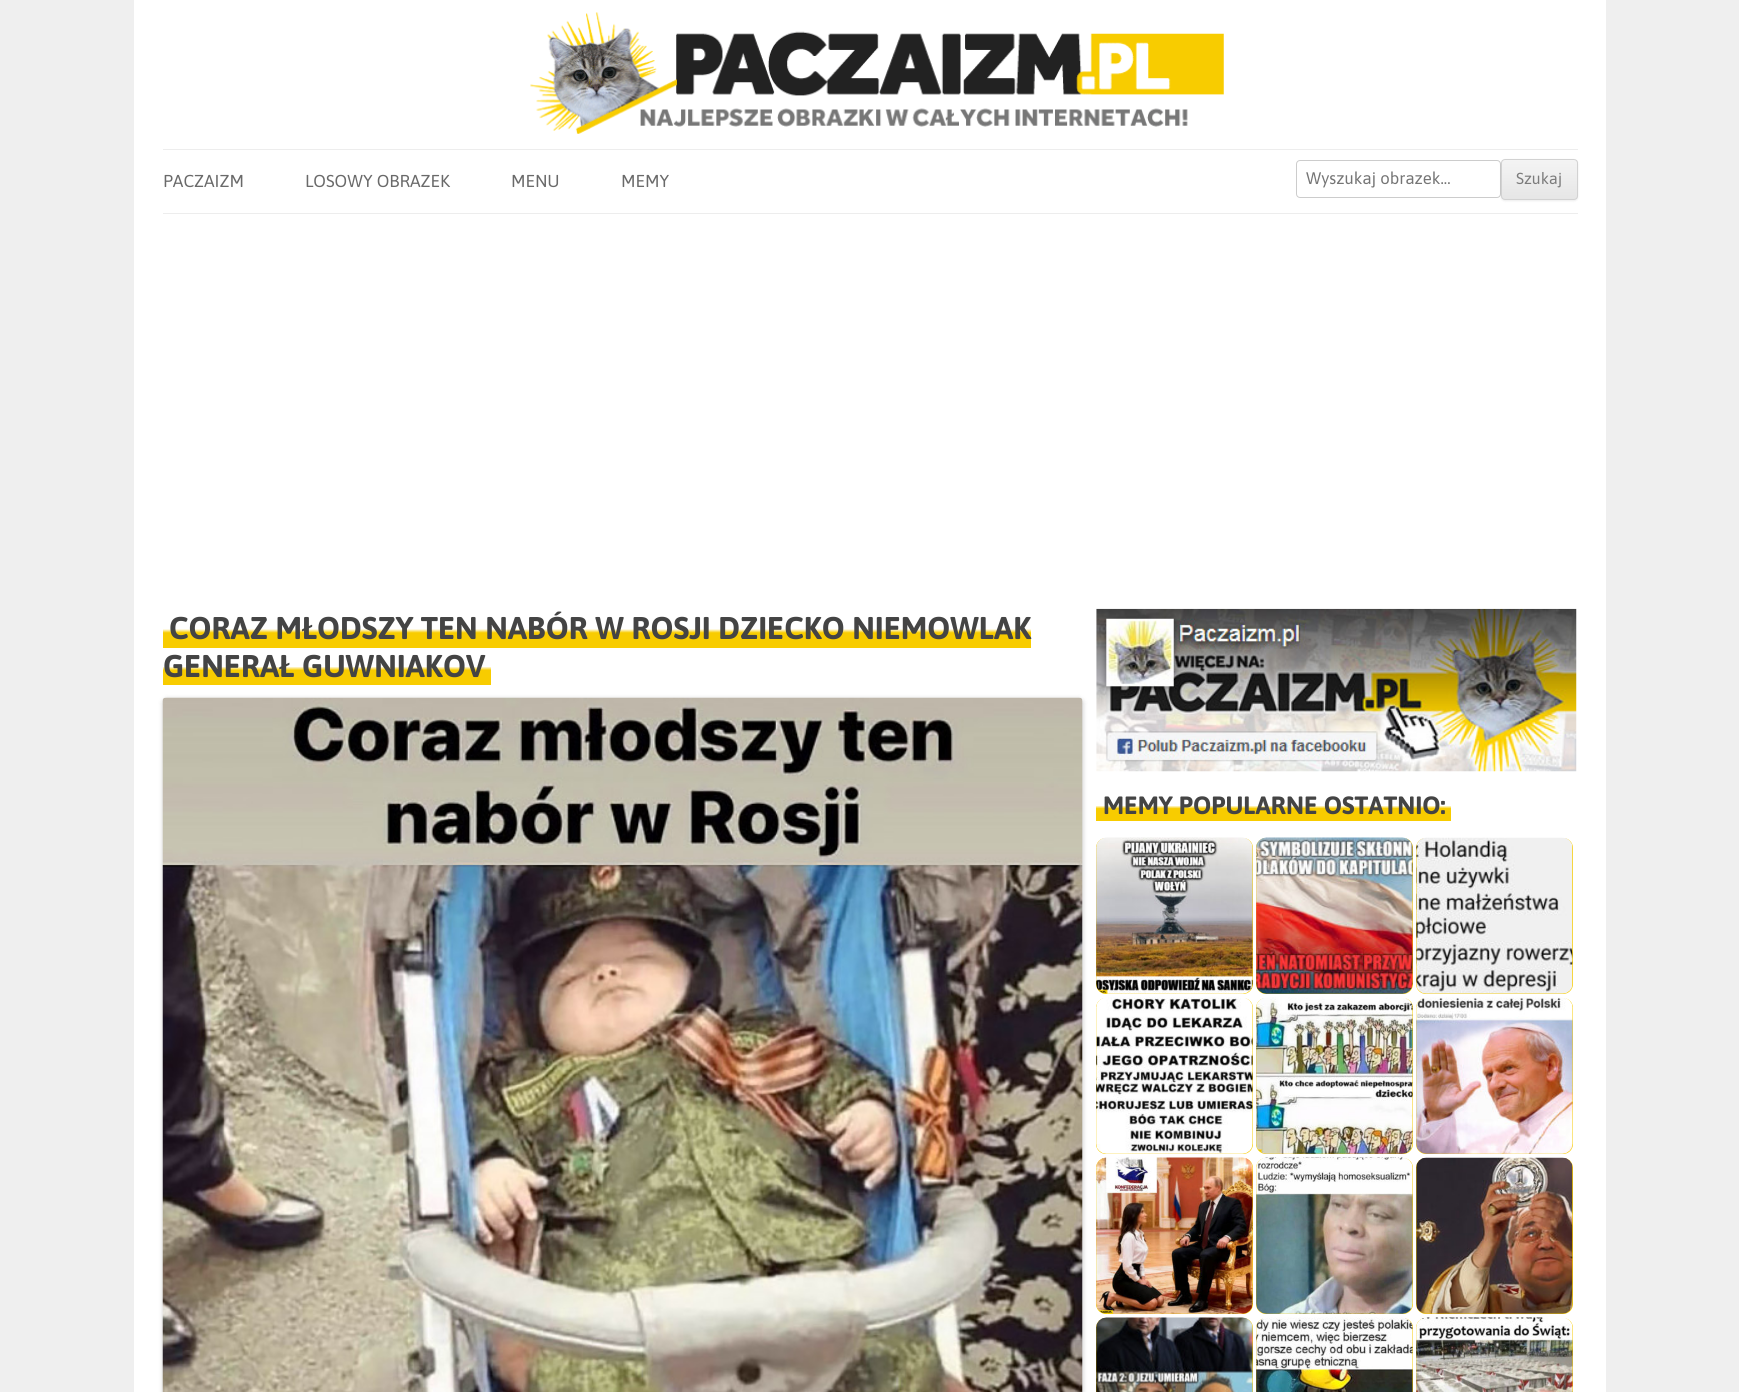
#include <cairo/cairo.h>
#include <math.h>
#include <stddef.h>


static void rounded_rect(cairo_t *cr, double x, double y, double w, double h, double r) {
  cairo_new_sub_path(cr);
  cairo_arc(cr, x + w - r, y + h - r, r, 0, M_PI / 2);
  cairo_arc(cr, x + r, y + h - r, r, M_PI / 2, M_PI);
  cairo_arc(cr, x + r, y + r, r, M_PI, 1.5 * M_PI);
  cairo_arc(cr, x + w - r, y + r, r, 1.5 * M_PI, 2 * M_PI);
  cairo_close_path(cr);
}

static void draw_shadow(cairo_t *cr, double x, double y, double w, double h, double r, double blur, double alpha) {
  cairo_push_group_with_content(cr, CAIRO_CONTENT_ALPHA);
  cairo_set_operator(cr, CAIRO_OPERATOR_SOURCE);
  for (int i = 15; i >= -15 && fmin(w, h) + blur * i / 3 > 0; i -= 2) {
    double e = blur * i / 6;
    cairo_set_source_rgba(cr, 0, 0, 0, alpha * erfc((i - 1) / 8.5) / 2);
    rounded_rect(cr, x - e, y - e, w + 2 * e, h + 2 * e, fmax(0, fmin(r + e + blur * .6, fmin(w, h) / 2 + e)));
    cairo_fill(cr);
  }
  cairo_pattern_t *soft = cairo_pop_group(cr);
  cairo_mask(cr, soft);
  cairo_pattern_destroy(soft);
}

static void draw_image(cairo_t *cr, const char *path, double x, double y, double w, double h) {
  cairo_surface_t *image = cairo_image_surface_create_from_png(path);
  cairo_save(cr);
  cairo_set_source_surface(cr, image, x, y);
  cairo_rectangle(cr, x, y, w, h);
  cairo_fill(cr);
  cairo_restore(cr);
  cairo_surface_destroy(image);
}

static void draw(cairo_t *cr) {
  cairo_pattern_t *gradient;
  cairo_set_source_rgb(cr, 239 / 255.0, 239 / 255.0, 239 / 255.0);
  cairo_paint(cr);
  cairo_set_source_rgb(cr, 1, 1, 1);
  cairo_rectangle(cr, 134, 0, 1472, 1392);
  cairo_fill(cr);
  draw_image(cr, "images/1.png", 530, 12, 694, 122);
  cairo_set_source_rgb(cr, 237 / 255.0, 237 / 255.0, 237 / 255.0);
  cairo_rectangle(cr, 163, 149, 1415, 1);
  cairo_fill(cr);
  cairo_rectangle(cr, 163, 213, 1415, 1);
  cairo_fill(cr);
  rounded_rect(cr, 1296.5, 160.5, 204, 37, 3.5);
  cairo_set_source_rgb(cr, 204 / 255.0, 204 / 255.0, 204 / 255.0);
  cairo_set_line_width(cr, 1);
  cairo_stroke(cr);
  cairo_set_source_rgb(cr, 64 / 255.0, 64 / 255.0, 64 / 255.0);
  draw_shadow(cr, 1501, 160, 77, 41, 4, 1, 0.1);
  cairo_save(cr);
  rounded_rect(cr, 1501, 159, 77, 41, 4);
  cairo_clip(cr);
  gradient = cairo_pattern_create_linear(1539, 160, 1539, 199);
  cairo_pattern_add_color_stop_rgba(gradient, 0, 244 / 255.0, 244 / 255.0, 244 / 255.0, 1);
  cairo_pattern_add_color_stop_rgba(gradient, 1, 230 / 255.0, 230 / 255.0, 230 / 255.0, 1);
  cairo_set_source(cr, gradient);
  cairo_pattern_destroy(gradient);
  cairo_rectangle(cr, 1501, 160, 77, 39);
  cairo_fill(cr);
  cairo_restore(cr);
  rounded_rect(cr, 1501.5, 159.5, 76, 40, 3.5);
  cairo_set_source_rgb(cr, 210 / 255.0, 210 / 255.0, 210 / 255.0);
  cairo_stroke(cr);
  gradient = cairo_pattern_create_linear(597, 610, 597, 648);
  cairo_pattern_add_color_stop_rgba(gradient, 0.5, 1, 1, 1, 1);
  cairo_pattern_add_color_stop_rgba(gradient, 0.6, 248 / 255.0, 204 / 255.0, 0, 1);
  cairo_set_source(cr, gradient);
  cairo_pattern_destroy(gradient);
  cairo_rectangle(cr, 163, 629, 868, 19);
  cairo_fill(cr);
  gradient = cairo_pattern_create_linear(327, 648, 327, 685);
  cairo_pattern_add_color_stop_rgba(gradient, 0.5, 1, 1, 1, 1);
  cairo_pattern_add_color_stop_rgba(gradient, 0.6, 248 / 255.0, 204 / 255.0, 0, 1);
  cairo_set_source(cr, gradient);
  cairo_pattern_destroy(gradient);
  cairo_rectangle(cr, 163, 667, 328, 18);
  cairo_fill(cr);
  cairo_set_source_rgb(cr, 0, 0, 0);
  draw_shadow(cr, 163, 699, 920, 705, 4, 2.5, 0.2);
  draw_image(cr, "images/2.png", 162, 697, 921, 695);
  draw_image(cr, "images/3.png", 1096, 608, 481, 164);
  gradient = cairo_pattern_create_linear(1274, 790, 1274, 821);
  cairo_pattern_add_color_stop_rgba(gradient, 0.5, 1, 1, 1, 1);
  cairo_pattern_add_color_stop_rgba(gradient, 0.6, 248 / 255.0, 204 / 255.0, 0, 1);
  cairo_set_source(cr, gradient);
  cairo_pattern_destroy(gradient);
  cairo_rectangle(cr, 1096, 806, 355, 15);
  cairo_fill(cr);
  cairo_set_source_rgb(cr, 248 / 255.0, 205 / 255.0, 5 / 255.0);
  rounded_rect(cr, 1096, 838, 157, 156, 10);
  cairo_fill(cr);
  draw_image(cr, "images/4.png", 1096, 837, 157, 157);
  rounded_rect(cr, 1256, 838, 157, 156, 10);
  cairo_fill(cr);
  draw_image(cr, "images/5.png", 1256, 837, 157, 157);
  rounded_rect(cr, 1416, 838, 157, 156, 10);
  cairo_fill(cr);
  draw_image(cr, "images/6.png", 1416, 837, 157, 157);
  rounded_rect(cr, 1096, 998, 157, 156, 10);
  cairo_fill(cr);
  draw_image(cr, "images/7.png", 1096, 997, 157, 157);
  rounded_rect(cr, 1256, 998, 157, 156, 10);
  cairo_fill(cr);
  draw_image(cr, "images/8.png", 1256, 997, 157, 157);
  rounded_rect(cr, 1416, 998, 157, 156, 10);
  cairo_fill(cr);
  draw_image(cr, "images/9.png", 1416, 997, 157, 157);
  rounded_rect(cr, 1096, 1158, 157, 156, 10);
  cairo_fill(cr);
  draw_image(cr, "images/10.png", 1096, 1157, 157, 157);
  rounded_rect(cr, 1256, 1158, 157, 156, 10);
  cairo_fill(cr);
  draw_image(cr, "images/11.png", 1256, 1157, 157, 157);
  rounded_rect(cr, 1416, 1158, 157, 156, 10);
  cairo_fill(cr);
  draw_image(cr, "images/12.png", 1416, 1157, 157, 157);
  rounded_rect(cr, 1096, 1318, 157, 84, 10);
  cairo_fill(cr);
  draw_image(cr, "images/13.png", 1096, 1317, 157, 75);
  rounded_rect(cr, 1256, 1318, 157, 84, 10);
  cairo_fill(cr);
  draw_image(cr, "images/14.png", 1256, 1317, 157, 75);
  rounded_rect(cr, 1416, 1318, 157, 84, 10);
  cairo_fill(cr);
  draw_image(cr, "images/15.png", 1416, 1317, 157, 75);
  cairo_select_font_face(cr, "Asap", CAIRO_FONT_SLANT_NORMAL, CAIRO_FONT_WEIGHT_NORMAL);
  cairo_set_font_size(cr, 17.25);
  cairo_set_source_rgb(cr, 106 / 255.0, 106 / 255.0, 106 / 255.0);
  cairo_move_to(cr, 163, 187);
  cairo_show_text(cr, "PACZAIZM");
  cairo_move_to(cr, 305, 187);
  cairo_show_text(cr, "LOSOWY OBRAZEK");
  cairo_move_to(cr, 511, 187);
  cairo_show_text(cr, "MENU");
  cairo_move_to(cr, 621, 187);
  cairo_show_text(cr, "MEMY");
  cairo_set_font_size(cr, 16.75);
  cairo_set_source_rgb(cr, 117 / 255.0, 117 / 255.0, 117 / 255.0);
  cairo_move_to(cr, 1306, 184);
  cairo_show_text(cr, "Wyszukaj obrazek...");
  cairo_set_font_size(cr, 16);
  cairo_set_source_rgb(cr, 124 / 255.0, 124 / 255.0, 124 / 255.0);
  cairo_move_to(cr, 1516, 184);
  cairo_show_text(cr, "Szukaj");
  cairo_select_font_face(cr, "Asap", CAIRO_FONT_SLANT_NORMAL, CAIRO_FONT_WEIGHT_BOLD);
  cairo_set_font_size(cr, 31.4);
  cairo_set_source_rgb(cr, 68 / 255.0, 68 / 255.0, 68 / 255.0);
  cairo_move_to(cr, 169, 639);
  cairo_show_text(cr, "CORAZ MŁODSZY TEN NABÓR W ROSJI DZIECKO NIEMOWLAK");
  cairo_move_to(cr, 163, 677);
  cairo_show_text(cr, "GENERAŁ GUWNIAKOV");
  cairo_set_font_size(cr, 25);
  cairo_move_to(cr, 1103, 814);
  cairo_show_text(cr, "MEMY POPULARNE OSTATNIO:");
}

int main(void) {
  cairo_surface_t *surface = cairo_image_surface_create(CAIRO_FORMAT_RGB24, 1739, 1392);
  cairo_t *cr = cairo_create(surface);
  cairo_font_options_t *options = cairo_font_options_create();
  cairo_font_options_set_hint_metrics(options, CAIRO_HINT_METRICS_OFF);
  cairo_font_options_set_hint_style(options, CAIRO_HINT_STYLE_NONE);
  cairo_set_font_options(cr, options);
  cairo_set_miter_limit(cr, 4);
  draw(cr);
  cairo_surface_write_to_png(surface, "out.png");
  cairo_font_options_destroy(options);
  cairo_destroy(cr);
  cairo_surface_destroy(surface);
  return 0;
}
